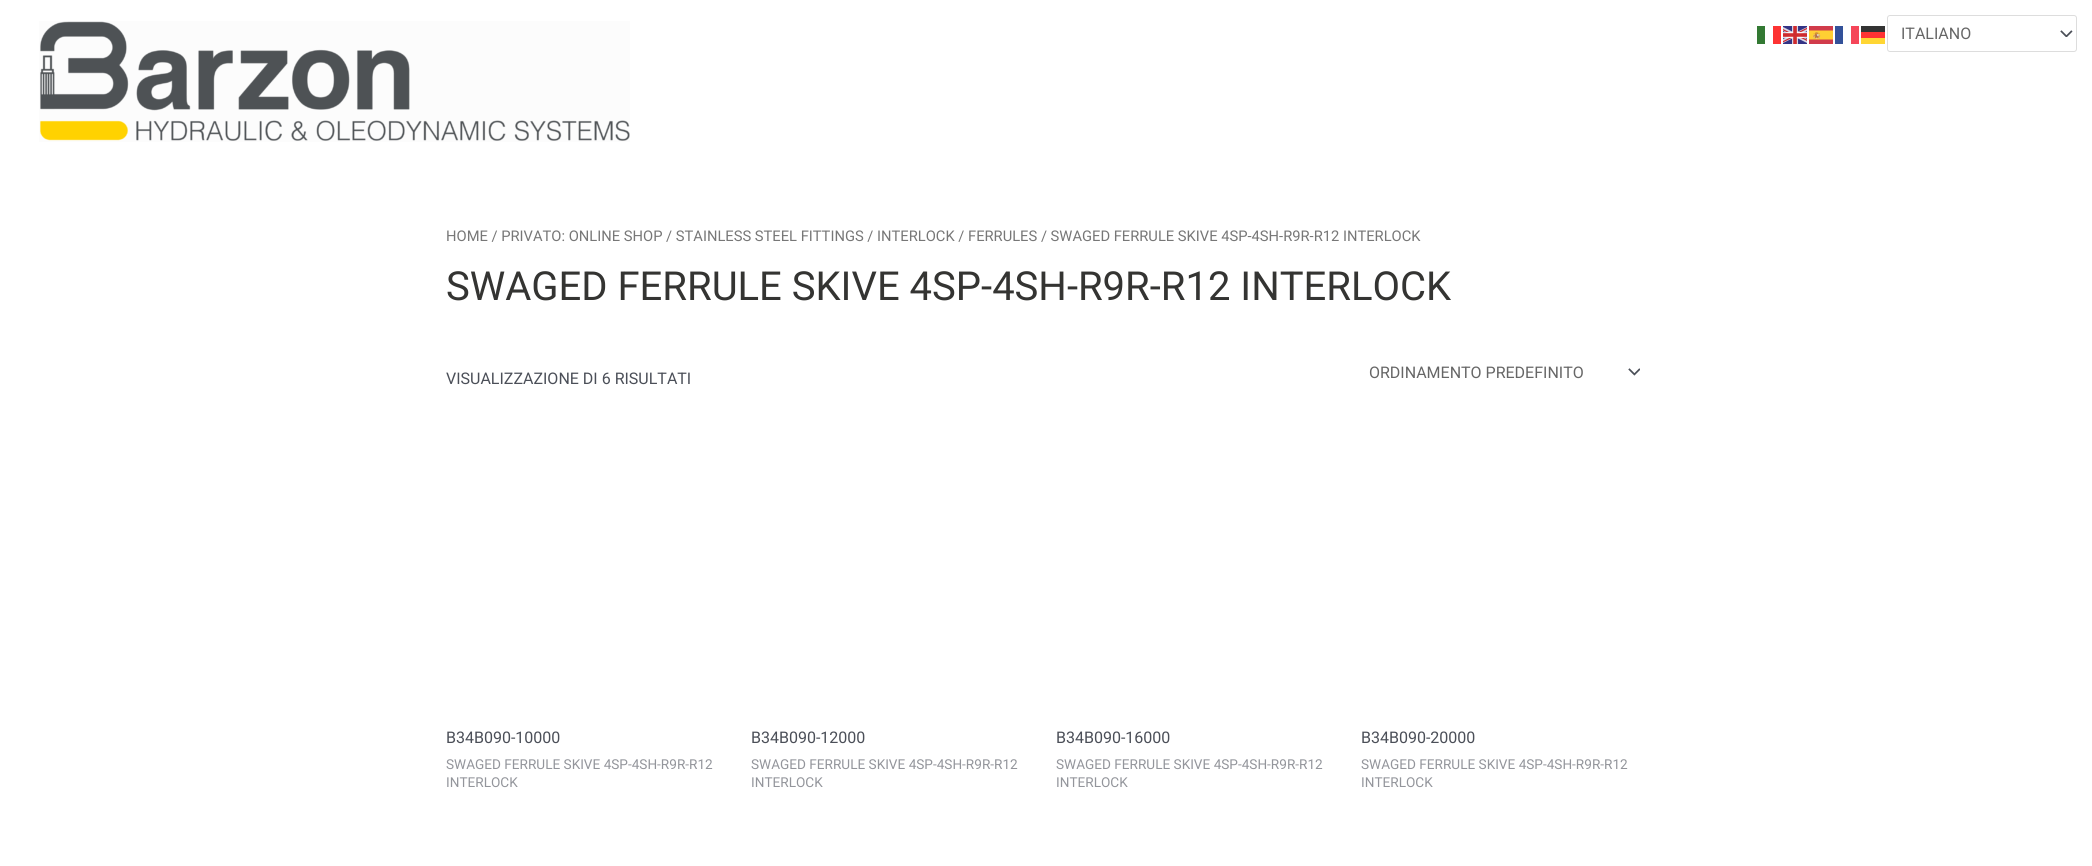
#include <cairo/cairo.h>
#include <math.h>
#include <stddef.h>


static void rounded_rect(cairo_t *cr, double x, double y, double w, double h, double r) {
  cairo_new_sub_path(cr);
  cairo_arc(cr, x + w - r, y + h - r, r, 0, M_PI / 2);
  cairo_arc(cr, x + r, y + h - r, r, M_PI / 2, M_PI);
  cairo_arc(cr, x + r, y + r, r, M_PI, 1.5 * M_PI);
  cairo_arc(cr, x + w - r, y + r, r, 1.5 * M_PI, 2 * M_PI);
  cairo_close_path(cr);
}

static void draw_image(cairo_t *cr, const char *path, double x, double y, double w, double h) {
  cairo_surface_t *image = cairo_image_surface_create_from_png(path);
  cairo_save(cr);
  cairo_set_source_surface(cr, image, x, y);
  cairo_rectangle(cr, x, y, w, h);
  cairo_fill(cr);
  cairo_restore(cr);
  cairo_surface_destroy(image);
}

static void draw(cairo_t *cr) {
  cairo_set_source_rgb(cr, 1, 1, 1);
  cairo_paint(cr);
  cairo_set_source_rgb(cr, 51 / 255.0, 121 / 255.0, 51 / 255.0);
  cairo_rectangle(cr, 1757, 26, 8, 18);
  cairo_fill(cr);
  cairo_set_source_rgb(cr, 253 / 255.0, 51 / 255.0, 51 / 255.0);
  cairo_rectangle(cr, 1773, 26, 8, 18);
  cairo_fill(cr);
  draw_image(cr, "images/1.png", 1783, 26, 24, 18);
  draw_image(cr, "images/2.png", 1809, 26, 24, 18);
  cairo_set_source_rgb(cr, 51 / 255.0, 81 / 255.0, 153 / 255.0);
  cairo_rectangle(cr, 1835, 26, 8, 18);
  cairo_fill(cr);
  cairo_set_source_rgb(cr, 245 / 255.0, 70 / 255.0, 89 / 255.0);
  cairo_rectangle(cr, 1851, 26, 8, 18);
  cairo_fill(cr);
  cairo_set_source_rgb(cr, 51 / 255.0, 51 / 255.0, 51 / 255.0);
  cairo_rectangle(cr, 1861, 26, 24, 6);
  cairo_fill(cr);
  draw_image(cr, "images/3.png", 2060, 30, 13, 7);
  rounded_rect(cr, 1887.5, 15.5, 189, 36, 2.5);
  cairo_set_source_rgb(cr, 221 / 255.0, 221 / 255.0, 221 / 255.0);
  cairo_set_line_width(cr, 1);
  cairo_stroke(cr);
  cairo_set_source_rgb(cr, 1, 51 / 255.0, 51 / 255.0);
  cairo_rectangle(cr, 1861, 32, 24, 6);
  cairo_fill(cr);
  cairo_set_source_rgb(cr, 1, 214 / 255.0, 51 / 255.0);
  cairo_rectangle(cr, 1861, 38, 24, 6);
  cairo_fill(cr);
  draw_image(cr, "images/4.png", 39, 21, 591, 121);
  draw_image(cr, "images/5.png", 1628, 368, 12, 8);
  cairo_select_font_face(cr, "Roboto", CAIRO_FONT_SLANT_NORMAL, CAIRO_FONT_WEIGHT_NORMAL);
  cairo_set_font_size(cr, 16);
  cairo_set_source_rgb(cr, 102 / 255.0, 102 / 255.0, 102 / 255.0);
  cairo_move_to(cr, 1901, 39);
  cairo_show_text(cr, "ITALIANO");
  cairo_set_font_size(cr, 14.72);
  cairo_set_source_rgb(cr, 119 / 255.0, 119 / 255.0, 119 / 255.0);
  cairo_move_to(cr, 446, 241);
  cairo_show_text(cr, "HOME / PRIVATO: ONLINE SHOP / STAINLESS STEEL FITTINGS / INTERLOCK / FERRULES / SWAGED FERRULE SKIVE 4SP-4SH-R9R-R12 INTERLOCK");
  cairo_set_font_size(cr, 40);
  cairo_set_source_rgb(cr, 52 / 255.0, 52 / 255.0, 50 / 255.0);
  cairo_move_to(cr, 446, 300);
  cairo_show_text(cr, "SWAGED FERRULE SKIVE 4SP-4SH-R9R-R12 INTERLOCK");
  cairo_set_font_size(cr, 16);
  cairo_set_source_rgb(cr, 75 / 255.0, 79 / 255.0, 88 / 255.0);
  cairo_move_to(cr, 446, 384);
  cairo_show_text(cr, "VISUALIZZAZIONE DI 6 RISULTATI");
  cairo_set_source_rgb(cr, 102 / 255.0, 102 / 255.0, 102 / 255.0);
  cairo_move_to(cr, 1369, 378);
  cairo_show_text(cr, "ORDINAMENTO PREDEFINITO");
  cairo_set_source_rgb(cr, 75 / 255.0, 79 / 255.0, 88 / 255.0);
  cairo_move_to(cr, 446, 743);
  cairo_show_text(cr, "B34B090-10000");
  cairo_set_font_size(cr, 13.6);
  cairo_set_source_rgb(cr, 147 / 255.0, 149 / 255.0, 155 / 255.0);
  cairo_move_to(cr, 446, 769);
  cairo_show_text(cr, "SWAGED FERRULE SKIVE 4SP-4SH-R9R-R12");
  cairo_move_to(cr, 446, 787);
  cairo_show_text(cr, "INTERLOCK");
  cairo_set_font_size(cr, 16);
  cairo_set_source_rgb(cr, 75 / 255.0, 79 / 255.0, 88 / 255.0);
  cairo_move_to(cr, 751, 743);
  cairo_show_text(cr, "B34B090-12000");
  cairo_set_font_size(cr, 13.6);
  cairo_set_source_rgb(cr, 147 / 255.0, 149 / 255.0, 155 / 255.0);
  cairo_move_to(cr, 751, 769);
  cairo_show_text(cr, "SWAGED FERRULE SKIVE 4SP-4SH-R9R-R12");
  cairo_move_to(cr, 751, 787);
  cairo_show_text(cr, "INTERLOCK");
  cairo_set_font_size(cr, 16);
  cairo_set_source_rgb(cr, 75 / 255.0, 79 / 255.0, 88 / 255.0);
  cairo_move_to(cr, 1056, 743);
  cairo_show_text(cr, "B34B090-16000");
  cairo_set_font_size(cr, 13.6);
  cairo_set_source_rgb(cr, 147 / 255.0, 149 / 255.0, 155 / 255.0);
  cairo_move_to(cr, 1056, 769);
  cairo_show_text(cr, "SWAGED FERRULE SKIVE 4SP-4SH-R9R-R12");
  cairo_move_to(cr, 1056, 787);
  cairo_show_text(cr, "INTERLOCK");
  cairo_set_font_size(cr, 16);
  cairo_set_source_rgb(cr, 75 / 255.0, 79 / 255.0, 88 / 255.0);
  cairo_move_to(cr, 1361, 743);
  cairo_show_text(cr, "B34B090-20000");
  cairo_set_font_size(cr, 13.6);
  cairo_set_source_rgb(cr, 147 / 255.0, 149 / 255.0, 155 / 255.0);
  cairo_move_to(cr, 1361, 769);
  cairo_show_text(cr, "SWAGED FERRULE SKIVE 4SP-4SH-R9R-R12");
  cairo_move_to(cr, 1361, 787);
  cairo_show_text(cr, "INTERLOCK");
}

int main(void) {
  cairo_surface_t *surface = cairo_image_surface_create(CAIRO_FORMAT_RGB24, 2092, 866);
  cairo_t *cr = cairo_create(surface);
  cairo_font_options_t *options = cairo_font_options_create();
  cairo_font_options_set_hint_metrics(options, CAIRO_HINT_METRICS_OFF);
  cairo_font_options_set_hint_style(options, CAIRO_HINT_STYLE_NONE);
  cairo_set_font_options(cr, options);
  cairo_set_miter_limit(cr, 4);
  draw(cr);
  cairo_surface_write_to_png(surface, "out.png");
  cairo_font_options_destroy(options);
  cairo_destroy(cr);
  cairo_surface_destroy(surface);
  return 0;
}
